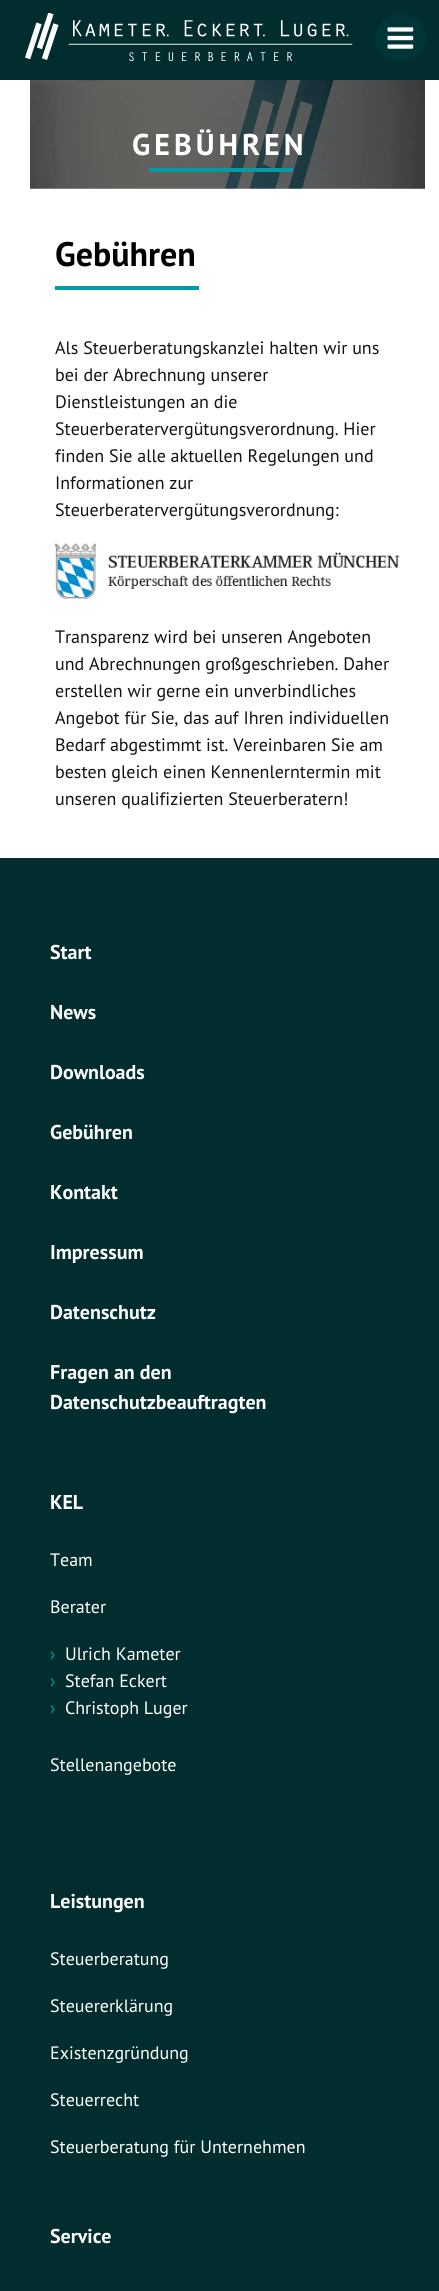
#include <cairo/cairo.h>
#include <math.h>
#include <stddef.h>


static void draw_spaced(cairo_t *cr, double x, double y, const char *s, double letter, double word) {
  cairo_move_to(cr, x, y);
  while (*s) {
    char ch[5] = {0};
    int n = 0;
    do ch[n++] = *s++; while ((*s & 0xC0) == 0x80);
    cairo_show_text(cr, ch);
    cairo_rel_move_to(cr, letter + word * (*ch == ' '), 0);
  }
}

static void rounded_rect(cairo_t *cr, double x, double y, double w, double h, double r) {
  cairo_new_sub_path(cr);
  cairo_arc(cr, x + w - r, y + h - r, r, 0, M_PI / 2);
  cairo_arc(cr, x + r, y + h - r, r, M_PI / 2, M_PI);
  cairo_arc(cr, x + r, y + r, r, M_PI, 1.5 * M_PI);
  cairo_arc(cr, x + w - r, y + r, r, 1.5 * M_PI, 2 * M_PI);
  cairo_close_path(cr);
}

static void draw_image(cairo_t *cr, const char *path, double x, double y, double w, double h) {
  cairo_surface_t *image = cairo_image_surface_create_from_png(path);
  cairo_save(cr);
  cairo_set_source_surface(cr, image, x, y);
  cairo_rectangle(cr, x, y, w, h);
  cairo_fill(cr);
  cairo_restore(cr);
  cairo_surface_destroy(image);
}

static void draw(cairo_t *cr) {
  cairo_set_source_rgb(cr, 1, 1, 1);
  cairo_paint(cr);
  cairo_set_source_rgb(cr, 1 / 255.0, 45 / 255.0, 47 / 255.0);
  cairo_rectangle(cr, 0, 0, 439, 80);
  cairo_fill(cr);
  draw_image(cr, "images/1.png", 25, 13, 328, 48);
  cairo_set_source_rgb(cr, 0, 53 / 255.0, 55 / 255.0);
  rounded_rect(cr, 375, 14, 51, 47, 23.5);
  cairo_fill(cr);
  draw_image(cr, "images/2.png", 387, 27, 27, 22);
  draw_image(cr, "images/3.png", 30, 80, 395, 109);
  cairo_set_source_rgb(cr, 2 / 255.0, 155 / 255.0, 166 / 255.0);
  cairo_rectangle(cr, 149, 168, 144, 4);
  cairo_fill(cr);
  cairo_rectangle(cr, 55, 286, 144, 4);
  cairo_fill(cr);
  draw_image(cr, "images/4.png", 55, 543, 345, 56);
  cairo_set_source_rgb(cr, 1 / 255.0, 45 / 255.0, 47 / 255.0);
  cairo_rectangle(cr, 0, 859, 439, 1432);
  cairo_fill(cr);
  cairo_set_source_rgb(cr, 1 / 255.0, 43 / 255.0, 45 / 255.0);
  cairo_rectangle(cr, 0, 858, 439, 1);
  cairo_fill(cr);
  cairo_select_font_face(cr, "PT Sans", CAIRO_FONT_SLANT_NORMAL, CAIRO_FONT_WEIGHT_BOLD);
  cairo_set_font_size(cr, 30);
  cairo_set_source_rgb(cr, 1, 1, 1);
  draw_spaced(cr, 132, 155, "GEBÜHREN", 4, 0);
  cairo_set_font_size(cr, 34);
  cairo_set_source_rgb(cr, 0, 0, 0);
  cairo_move_to(cr, 55, 266);
  cairo_show_text(cr, "Gebühren");
  cairo_select_font_face(cr, "PT Sans", CAIRO_FONT_SLANT_NORMAL, CAIRO_FONT_WEIGHT_NORMAL);
  cairo_set_font_size(cr, 18);
  cairo_set_source_rgb(cr, 18 / 255.0, 18 / 255.0, 18 / 255.0);
  cairo_move_to(cr, 55, 354);
  cairo_show_text(cr, "Als Steuerberatungskanzlei halten wir uns");
  cairo_move_to(cr, 55, 381);
  cairo_show_text(cr, "bei der Abrechnung unserer");
  cairo_move_to(cr, 55, 408);
  cairo_show_text(cr, "Dienstleistungen an die");
  cairo_move_to(cr, 55, 435);
  cairo_show_text(cr, "Steuerberatervergütungsverordnung. Hier");
  cairo_move_to(cr, 55, 462);
  cairo_show_text(cr, "finden Sie alle aktuellen Regelungen und");
  cairo_move_to(cr, 55, 489);
  cairo_show_text(cr, "Informationen zur");
  cairo_move_to(cr, 55, 516);
  cairo_show_text(cr, "Steuerberatervergütungsverordnung:");
  cairo_move_to(cr, 55, 643);
  cairo_show_text(cr, "Transparenz wird bei unseren Angeboten");
  cairo_move_to(cr, 55, 670);
  cairo_show_text(cr, "und Abrechnungen großgeschrieben. Daher");
  cairo_move_to(cr, 55, 697);
  cairo_show_text(cr, "erstellen wir gerne ein unverbindliches");
  cairo_move_to(cr, 55, 724);
  cairo_show_text(cr, "Angebot für Sie, das auf Ihren individuellen");
  cairo_move_to(cr, 55, 751);
  cairo_show_text(cr, "Bedarf abgestimmt ist. Vereinbaren Sie am");
  cairo_move_to(cr, 55, 778);
  cairo_show_text(cr, "besten gleich einen Kennenlerntermin mit");
  cairo_move_to(cr, 55, 805);
  cairo_show_text(cr, "unseren qualifizierten Steuerberatern!");
  cairo_select_font_face(cr, "PT Sans", CAIRO_FONT_SLANT_NORMAL, CAIRO_FONT_WEIGHT_BOLD);
  cairo_set_font_size(cr, 20);
  cairo_set_source_rgb(cr, 1, 1, 1);
  cairo_move_to(cr, 50, 959);
  cairo_show_text(cr, "Start");
  cairo_move_to(cr, 50, 1019);
  cairo_show_text(cr, "News");
  cairo_move_to(cr, 50, 1079);
  cairo_show_text(cr, "Downloads");
  cairo_move_to(cr, 50, 1139);
  cairo_show_text(cr, "Gebühren");
  cairo_move_to(cr, 50, 1199);
  cairo_show_text(cr, "Kontakt");
  cairo_move_to(cr, 50, 1259);
  cairo_show_text(cr, "Impressum");
  cairo_move_to(cr, 50, 1319);
  cairo_show_text(cr, "Datenschutz");
  cairo_move_to(cr, 50, 1379);
  cairo_show_text(cr, "Fragen an den");
  cairo_move_to(cr, 50, 1409);
  cairo_show_text(cr, "Datenschutzbeauftragten");
  cairo_move_to(cr, 50, 1509);
  cairo_show_text(cr, "KEL");
  cairo_select_font_face(cr, "PT Sans", CAIRO_FONT_SLANT_NORMAL, CAIRO_FONT_WEIGHT_NORMAL);
  cairo_set_font_size(cr, 18);
  cairo_move_to(cr, 50, 1566);
  cairo_show_text(cr, "Team");
  cairo_move_to(cr, 50, 1613);
  cairo_show_text(cr, "Berater");
  cairo_set_source_rgb(cr, 2 / 255.0, 155 / 255.0, 166 / 255.0);
  cairo_move_to(cr, 50, 1660);
  cairo_show_text(cr, "›");
  cairo_set_source_rgb(cr, 1, 1, 1);
  cairo_move_to(cr, 65, 1660);
  cairo_show_text(cr, "Ulrich Kameter");
  cairo_set_source_rgb(cr, 2 / 255.0, 155 / 255.0, 166 / 255.0);
  cairo_move_to(cr, 50, 1687);
  cairo_show_text(cr, "›");
  cairo_set_source_rgb(cr, 1, 1, 1);
  cairo_move_to(cr, 65, 1687);
  cairo_show_text(cr, "Stefan Eckert");
  cairo_set_source_rgb(cr, 2 / 255.0, 155 / 255.0, 166 / 255.0);
  cairo_move_to(cr, 50, 1714);
  cairo_show_text(cr, "›");
  cairo_set_source_rgb(cr, 1, 1, 1);
  cairo_move_to(cr, 65, 1714);
  cairo_show_text(cr, "Christoph Luger");
  cairo_move_to(cr, 50, 1771);
  cairo_show_text(cr, "Stellenangebote");
  cairo_select_font_face(cr, "PT Sans", CAIRO_FONT_SLANT_NORMAL, CAIRO_FONT_WEIGHT_BOLD);
  cairo_set_font_size(cr, 20);
  cairo_move_to(cr, 50, 1908);
  cairo_show_text(cr, "Leistungen");
  cairo_select_font_face(cr, "PT Sans", CAIRO_FONT_SLANT_NORMAL, CAIRO_FONT_WEIGHT_NORMAL);
  cairo_set_font_size(cr, 18);
  cairo_move_to(cr, 50, 1965);
  cairo_show_text(cr, "Steuerberatung");
  cairo_move_to(cr, 50, 2012);
  cairo_show_text(cr, "Steuererklärung");
  cairo_move_to(cr, 50, 2059);
  cairo_show_text(cr, "Existenzgründung");
  cairo_move_to(cr, 50, 2106);
  cairo_show_text(cr, "Steuerrecht");
  cairo_move_to(cr, 50, 2153);
  cairo_show_text(cr, "Steuerberatung für Unternehmen");
  cairo_select_font_face(cr, "PT Sans", CAIRO_FONT_SLANT_NORMAL, CAIRO_FONT_WEIGHT_BOLD);
  cairo_set_font_size(cr, 20);
  cairo_move_to(cr, 50, 2243);
  cairo_show_text(cr, "Service");
}

int main(void) {
  cairo_surface_t *surface = cairo_image_surface_create(CAIRO_FORMAT_RGB24, 439, 2291);
  cairo_t *cr = cairo_create(surface);
  cairo_font_options_t *options = cairo_font_options_create();
  cairo_font_options_set_hint_metrics(options, CAIRO_HINT_METRICS_OFF);
  cairo_font_options_set_hint_style(options, CAIRO_HINT_STYLE_NONE);
  cairo_set_font_options(cr, options);
  cairo_set_miter_limit(cr, 4);
  draw(cr);
  cairo_surface_write_to_png(surface, "out.png");
  cairo_font_options_destroy(options);
  cairo_destroy(cr);
  cairo_surface_destroy(surface);
  return 0;
}
